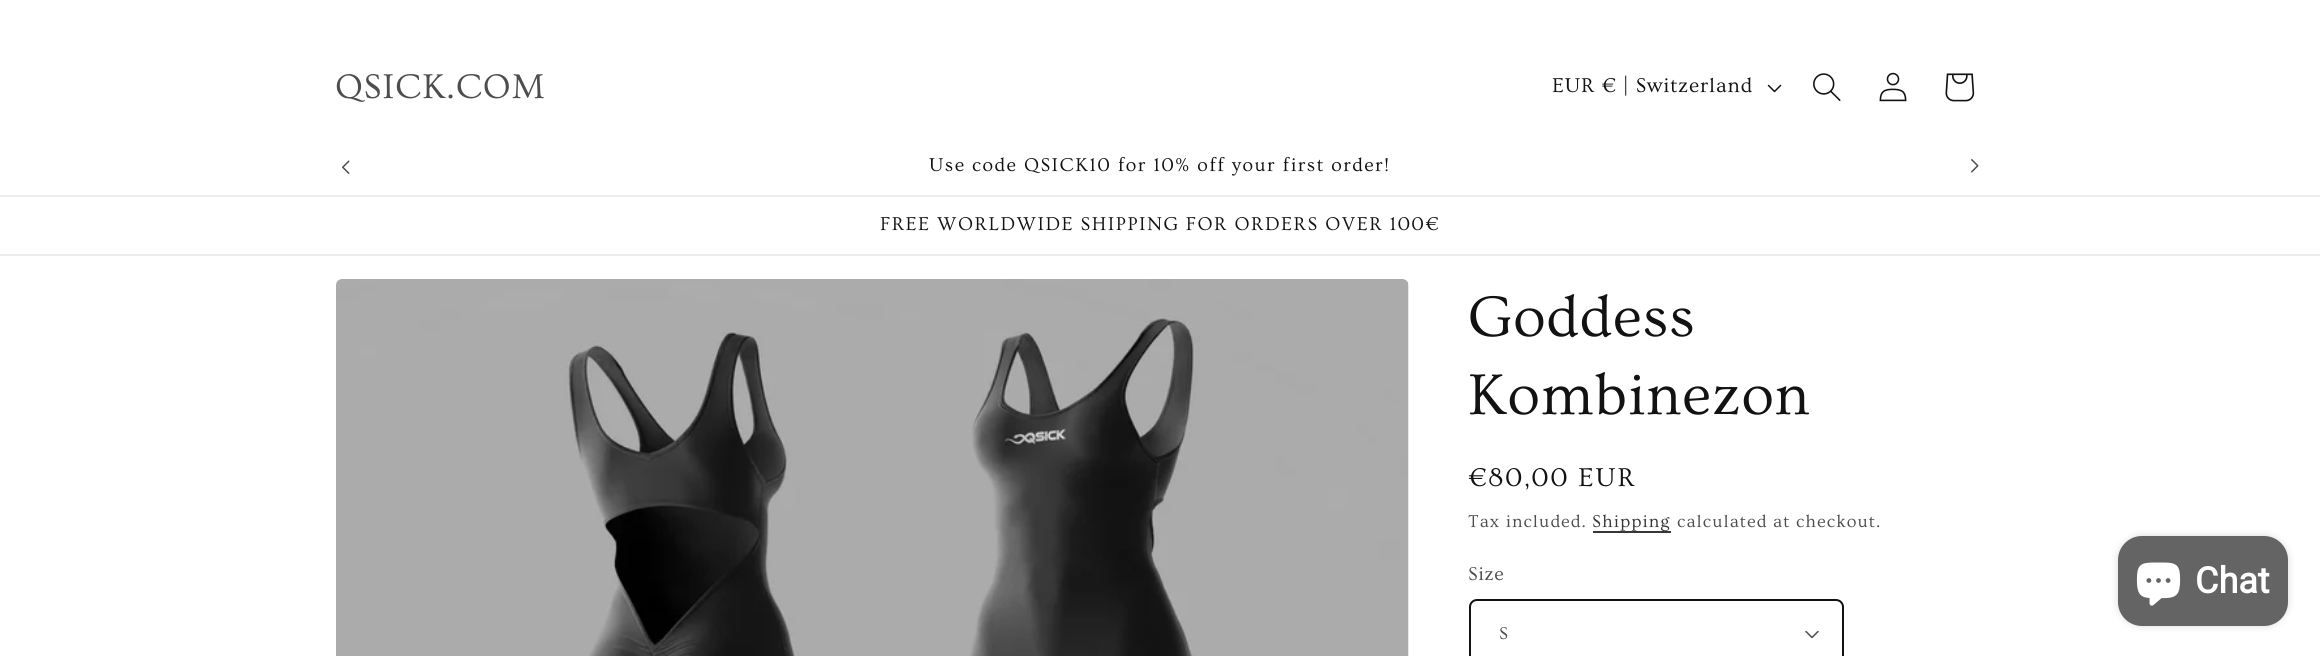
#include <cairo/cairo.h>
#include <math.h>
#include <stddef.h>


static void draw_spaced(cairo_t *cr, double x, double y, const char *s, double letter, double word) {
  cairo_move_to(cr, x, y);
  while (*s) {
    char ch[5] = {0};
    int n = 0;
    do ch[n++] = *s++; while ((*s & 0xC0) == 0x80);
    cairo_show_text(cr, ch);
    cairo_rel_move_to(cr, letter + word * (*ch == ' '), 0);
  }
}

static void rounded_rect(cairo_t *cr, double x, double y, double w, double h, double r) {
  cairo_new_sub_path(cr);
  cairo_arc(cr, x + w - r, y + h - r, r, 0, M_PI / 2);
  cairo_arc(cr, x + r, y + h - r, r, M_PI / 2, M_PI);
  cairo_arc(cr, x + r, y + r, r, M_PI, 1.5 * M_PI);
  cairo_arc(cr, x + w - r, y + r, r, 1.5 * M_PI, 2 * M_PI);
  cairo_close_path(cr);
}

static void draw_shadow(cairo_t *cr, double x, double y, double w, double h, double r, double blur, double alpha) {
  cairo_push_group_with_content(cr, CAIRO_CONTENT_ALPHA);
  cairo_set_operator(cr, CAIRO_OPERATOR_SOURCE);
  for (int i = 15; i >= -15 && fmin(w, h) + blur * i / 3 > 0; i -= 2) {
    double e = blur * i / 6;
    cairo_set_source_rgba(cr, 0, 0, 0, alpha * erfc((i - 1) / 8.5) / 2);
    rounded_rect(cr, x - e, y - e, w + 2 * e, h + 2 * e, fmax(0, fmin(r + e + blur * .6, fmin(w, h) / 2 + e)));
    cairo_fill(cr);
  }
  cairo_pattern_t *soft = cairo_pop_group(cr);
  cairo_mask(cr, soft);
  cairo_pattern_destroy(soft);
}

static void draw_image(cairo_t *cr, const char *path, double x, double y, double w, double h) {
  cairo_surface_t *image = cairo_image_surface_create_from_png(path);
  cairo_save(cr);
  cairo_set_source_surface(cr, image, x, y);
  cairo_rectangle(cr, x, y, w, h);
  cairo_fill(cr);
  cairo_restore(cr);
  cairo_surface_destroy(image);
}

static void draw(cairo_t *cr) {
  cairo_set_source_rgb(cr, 1, 1, 1);
  cairo_paint(cr);
  draw_image(cr, "images/1.png", 1767, 84, 15, 9);
  draw_image(cr, "images/2.png", 1813, 73, 28, 28);
  draw_image(cr, "images/3.png", 1879, 72, 28, 30);
  draw_image(cr, "images/4.png", 1945, 73, 30, 29);
  cairo_set_source_rgb(cr, 236 / 255.0, 236 / 255.0, 236 / 255.0);
  cairo_rectangle(cr, 0, 195, 2320, 2);
  cairo_fill(cr);
  draw_image(cr, "images/5.png", 342, 160, 8, 14);
  draw_image(cr, "images/6.png", 1971, 159, 8, 14);
  cairo_rectangle(cr, 0, 254, 2320, 2);
  cairo_fill(cr);
  draw_image(cr, "images/7.png", 336, 279, 1073, 377);
  cairo_set_source_rgb(cr, 54 / 255.0, 54 / 255.0, 54 / 255.0);
  cairo_rectangle(cr, 1593, 531, 78, 2);
  cairo_fill(cr);
  draw_image(cr, "images/8.png", 1805, 630, 14, 9);
  rounded_rect(cr, 1470, 600, 373, 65, 7);
  cairo_set_source_rgb(cr, 18 / 255.0, 18 / 255.0, 18 / 255.0);
  cairo_stroke(cr);
  cairo_set_source_rgb(cr, 0, 0, 0);
  draw_shadow(cr, 2118, 536, 170, 90, 24, 4, 0.15);
  cairo_set_source_rgb(cr, 100 / 255.0, 100 / 255.0, 100 / 255.0);
  rounded_rect(cr, 2118, 536, 170, 90, 24);
  cairo_fill(cr);
  draw_image(cr, "images/9.png", 2136, 562, 45, 44);
  cairo_select_font_face(cr, "Ovo", CAIRO_FONT_SLANT_NORMAL, CAIRO_FONT_WEIGHT_NORMAL);
  cairo_set_font_size(cr, 36);
  cairo_set_source_rgb(cr, 77 / 255.0, 77 / 255.0, 77 / 255.0);
  draw_spaced(cr, 335, 98, "QSICK.COM", 0.9, 0);
  cairo_set_font_size(cr, 21);
  cairo_set_source_rgb(cr, 18 / 255.0, 18 / 255.0, 18 / 255.0);
  draw_spaced(cr, 1552, 92, "EUR € | Switzerland", 0.9, 0);
  cairo_set_font_size(cr, 19.5);
  draw_spaced(cr, 929, 171, "Use code QSICK10 for 10% off your first order!", 1.5, 0);
  draw_spaced(cr, 880, 230, "FREE WORLDWIDE SHIPPING FOR ORDERS OVER 100€", 1.5, 0);
  cairo_set_font_size(cr, 60);
  draw_spaced(cr, 1468, 336, "Goddess", 0.9, 0);
  draw_spaced(cr, 1468, 414, "Kombinezon", 0.9, 0);
  cairo_set_font_size(cr, 27);
  draw_spaced(cr, 1468, 486, "€80,00 EUR", 2, 0);
  cairo_set_font_size(cr, 18);
  cairo_set_source_rgb(cr, 77 / 255.0, 77 / 255.0, 77 / 255.0);
  draw_spaced(cr, 1468, 527, "Tax included.", 1.05, 0);
  cairo_set_source_rgb(cr, 53 / 255.0, 53 / 255.0, 53 / 255.0);
  draw_spaced(cr, 1592, 527, "Shipping", 1.05, 0);
  cairo_set_source_rgb(cr, 77 / 255.0, 77 / 255.0, 77 / 255.0);
  draw_spaced(cr, 1677, 527, "calculated at checkout.", 1.05, 0);
  cairo_set_font_size(cr, 19.5);
  draw_spaced(cr, 1468, 580, "Size", 0.5, 0);
  cairo_set_font_size(cr, 18);
  draw_spaced(cr, 1499, 639, "S", 0.5, 0);
  cairo_select_font_face(cr, "Roboto", CAIRO_FONT_SLANT_NORMAL, CAIRO_FONT_WEIGHT_BOLD);
  cairo_set_font_size(cr, 36);
  cairo_set_source_rgb(cr, 1, 1, 1);
  cairo_move_to(cr, 2195, 593);
  cairo_show_text(cr, "Chat");
}

int main(void) {
  cairo_surface_t *surface = cairo_image_surface_create(CAIRO_FORMAT_RGB24, 2320, 656);
  cairo_t *cr = cairo_create(surface);
  cairo_font_options_t *options = cairo_font_options_create();
  cairo_font_options_set_hint_metrics(options, CAIRO_HINT_METRICS_OFF);
  cairo_font_options_set_hint_style(options, CAIRO_HINT_STYLE_NONE);
  cairo_set_font_options(cr, options);
  cairo_set_miter_limit(cr, 4);
  draw(cr);
  cairo_surface_write_to_png(surface, "out.png");
  cairo_font_options_destroy(options);
  cairo_destroy(cr);
  cairo_surface_destroy(surface);
  return 0;
}
